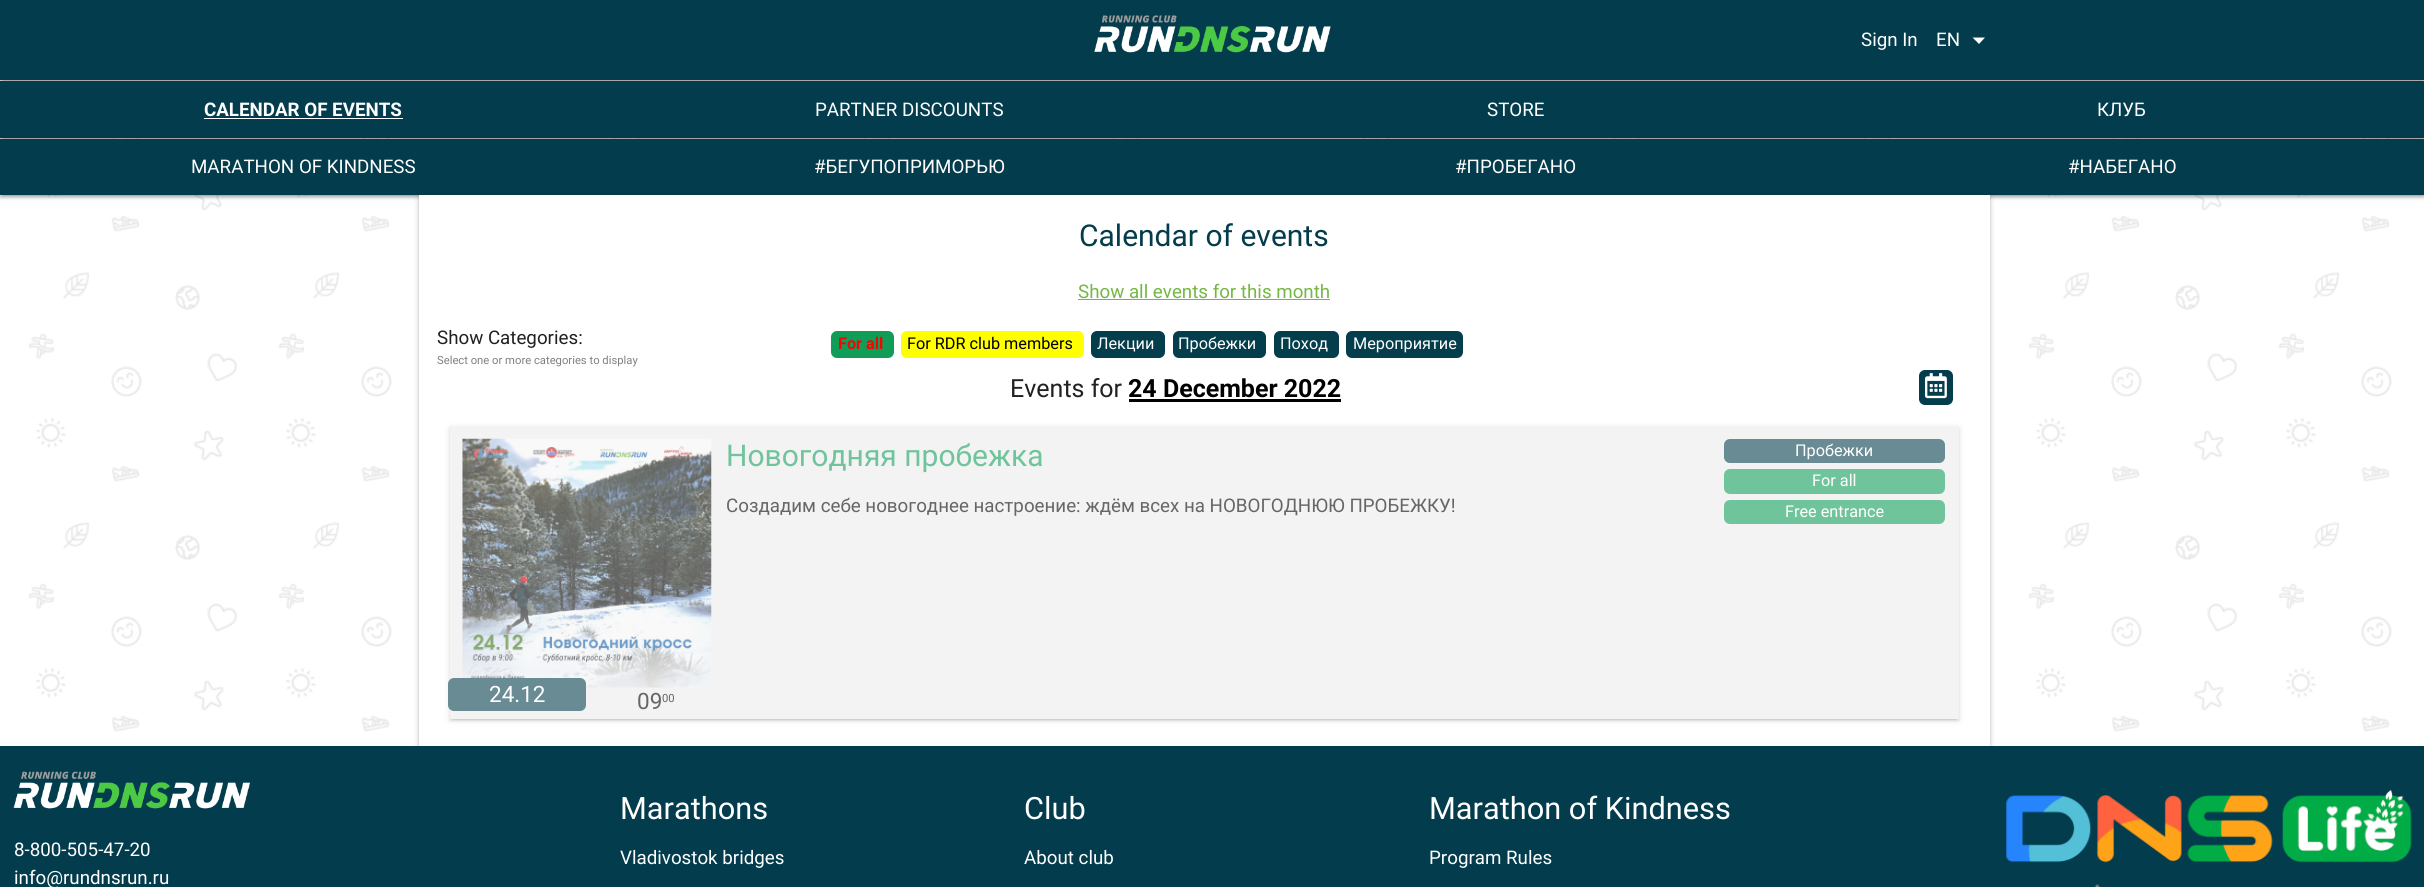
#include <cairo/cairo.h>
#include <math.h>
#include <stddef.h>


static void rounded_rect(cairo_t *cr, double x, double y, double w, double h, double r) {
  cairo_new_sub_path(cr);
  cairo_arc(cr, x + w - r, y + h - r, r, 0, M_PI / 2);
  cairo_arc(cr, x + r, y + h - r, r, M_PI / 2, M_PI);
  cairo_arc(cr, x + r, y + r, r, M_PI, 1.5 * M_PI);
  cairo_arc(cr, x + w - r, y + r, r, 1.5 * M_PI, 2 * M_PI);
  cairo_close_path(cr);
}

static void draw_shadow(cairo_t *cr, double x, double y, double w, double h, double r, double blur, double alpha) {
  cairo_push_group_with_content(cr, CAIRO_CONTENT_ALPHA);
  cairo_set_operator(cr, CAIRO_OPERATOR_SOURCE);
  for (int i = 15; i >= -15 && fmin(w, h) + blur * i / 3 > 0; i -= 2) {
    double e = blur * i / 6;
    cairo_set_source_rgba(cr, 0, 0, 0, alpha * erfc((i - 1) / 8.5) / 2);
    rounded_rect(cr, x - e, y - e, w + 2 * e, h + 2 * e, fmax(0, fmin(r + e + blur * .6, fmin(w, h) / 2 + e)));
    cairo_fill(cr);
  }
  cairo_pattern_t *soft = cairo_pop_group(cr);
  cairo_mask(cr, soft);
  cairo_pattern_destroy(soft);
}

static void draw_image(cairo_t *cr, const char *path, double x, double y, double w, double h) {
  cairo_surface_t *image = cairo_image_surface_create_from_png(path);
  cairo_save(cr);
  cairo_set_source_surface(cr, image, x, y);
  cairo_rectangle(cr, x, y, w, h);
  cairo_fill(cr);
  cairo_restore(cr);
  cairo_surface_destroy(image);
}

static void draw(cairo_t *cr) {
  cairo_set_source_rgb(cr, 1, 1, 1);
  cairo_paint(cr);
  draw_image(cr, "images/1.png", 28, 138, 2364, 594);
  cairo_set_source_rgb(cr, 0, 0, 0);
  draw_shadow(cr, 0, 1, 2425, 80, 0, 3, 0.2);
  draw_shadow(cr, 3, 6, 2420, 75, 0, 0.5, 0.12);
  draw_shadow(cr, 0, 3, 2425, 80, 0, 1, 0.14);
  cairo_set_source_rgb(cr, 3 / 255.0, 60 / 255.0, 76 / 255.0);
  cairo_rectangle(cr, 0, 0, 2424, 80);
  cairo_fill(cr);
  draw_image(cr, "images/2.png", 1094, 15, 237, 38);
  cairo_set_source_rgb(cr, 1, 1, 1);
  cairo_new_path(cr);
  cairo_move_to(cr, 1972.5, 37.5);
  cairo_line_to(cr, 1985, 37.5);
  cairo_line_to(cr, 1979, 44);
  cairo_close_path(cr);
  cairo_fill(cr);
  cairo_set_source_rgb(cr, 0, 0, 0);
  draw_shadow(cr, 0, 83, 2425, 56, 0, 3, 0.2);
  draw_shadow(cr, 3, 88, 2420, 51, 0, 0.5, 0.12);
  draw_shadow(cr, 0, 84, 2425, 56, 0, 1, 0.14);
  cairo_set_source_rgb(cr, 3 / 255.0, 60 / 255.0, 76 / 255.0);
  cairo_rectangle(cr, 0, 81, 2424, 57);
  cairo_fill(cr);
  cairo_set_source_rgb(cr, 1, 1, 1);
  cairo_rectangle(cr, 204, 118, 199, 1);
  cairo_fill(cr);
  cairo_set_source_rgb(cr, 0, 0, 0);
  draw_shadow(cr, 0, 140, 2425, 56, 0, 3, 0.2);
  draw_shadow(cr, 3, 145, 2420, 51, 0, 0.5, 0.12);
  draw_shadow(cr, 0, 141, 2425, 57, 0, 1, 0.14);
  cairo_set_source_rgb(cr, 3 / 255.0, 60 / 255.0, 76 / 255.0);
  cairo_rectangle(cr, 0, 139, 2424, 56);
  cairo_fill(cr);
  cairo_set_source_rgb(cr, 0, 0, 0);
  draw_shadow(cr, 419, 196, 1571, 552, 0, 3, 0.2);
  draw_shadow(cr, 419, 198, 1571, 551, 0, 1, 0.14);
  cairo_set_source_rgb(cr, 1, 1, 1);
  cairo_rectangle(cr, 419, 195, 1571, 551);
  cairo_fill(cr);
  cairo_set_source_rgb(cr, 117 / 255.0, 183 / 255.0, 67 / 255.0);
  cairo_rectangle(cr, 1078, 299, 252, 1);
  cairo_fill(cr);
  cairo_set_source_rgb(cr, 15 / 255.0, 157 / 255.0, 88 / 255.0);
  rounded_rect(cr, 831, 331, 63, 27, 6);
  cairo_fill(cr);
  cairo_set_source_rgb(cr, 1, 1, 0);
  rounded_rect(cr, 901, 331, 183, 27, 6);
  cairo_fill(cr);
  cairo_set_source_rgb(cr, 4 / 255.0, 61 / 255.0, 76 / 255.0);
  rounded_rect(cr, 1091, 331, 74, 27, 6);
  cairo_fill(cr);
  rounded_rect(cr, 1173, 331, 93, 27, 6);
  cairo_fill(cr);
  rounded_rect(cr, 1274, 331, 65, 27, 6);
  cairo_fill(cr);
  rounded_rect(cr, 1346, 331, 117, 27, 6);
  cairo_fill(cr);
  cairo_set_source_rgb(cr, 0, 0, 0);
  cairo_rectangle(cr, 1129, 399, 212, 3);
  cairo_fill(cr);
  cairo_set_source_rgb(cr, 4 / 255.0, 61 / 255.0, 76 / 255.0);
  rounded_rect(cr, 1919, 370, 34, 35, 6);
  cairo_fill(cr);
  draw_image(cr, "images/3.png", 1925, 373, 22, 26);
  cairo_set_source_rgb(cr, 102 / 255.0, 102 / 255.0, 102 / 255.0);
  draw_shadow(cr, 450, 428, 1509, 292, 0, 3, 0.2);
  draw_shadow(cr, 453, 433, 1503, 287, 0, 0.5, 0.12);
  draw_shadow(cr, 450, 429, 1509, 292, 0, 1, 0.14);
  cairo_set_source_rgb(cr, 243 / 255.0, 243 / 255.0, 243 / 255.0);
  cairo_rectangle(cr, 450, 426, 1509, 293);
  cairo_fill(cr);
  cairo_set_source_rgb(cr, 104 / 255.0, 139 / 255.0, 148 / 255.0);
  rounded_rect(cr, 1724, 439, 221, 24, 6);
  cairo_fill(cr);
  cairo_set_source_rgb(cr, 111 / 255.0, 196 / 255.0, 155 / 255.0);
  rounded_rect(cr, 1724, 469, 221, 25, 6);
  cairo_fill(cr);
  rounded_rect(cr, 1724, 500, 221, 24, 6);
  cairo_fill(cr);
  draw_image(cr, "images/4.png", 462, 438, 250, 250);
  cairo_set_source_rgb(cr, 104 / 255.0, 139 / 255.0, 148 / 255.0);
  rounded_rect(cr, 448, 678, 138, 33, 6);
  cairo_fill(cr);
  cairo_set_source_rgb(cr, 3 / 255.0, 60 / 255.0, 76 / 255.0);
  cairo_rectangle(cr, 0, 746, 2424, 141);
  cairo_fill(cr);
  draw_image(cr, "images/5.png", 13, 771, 237, 38);
  draw_image(cr, "images/6.png", 2006, 790, 406, 97);
  cairo_select_font_face(cr, "Roboto", CAIRO_FONT_SLANT_NORMAL, CAIRO_FONT_WEIGHT_NORMAL);
  cairo_set_font_size(cr, 18.75);
  cairo_set_source_rgb(cr, 1, 1, 1);
  cairo_move_to(cr, 1861, 46);
  cairo_show_text(cr, "Sign In");
  cairo_move_to(cr, 1936, 46);
  cairo_show_text(cr, "EN");
  cairo_select_font_face(cr, "Roboto", CAIRO_FONT_SLANT_NORMAL, CAIRO_FONT_WEIGHT_BOLD);
  cairo_move_to(cr, 204, 116);
  cairo_show_text(cr, "CALENDAR OF EVENTS");
  cairo_select_font_face(cr, "Roboto", CAIRO_FONT_SLANT_NORMAL, CAIRO_FONT_WEIGHT_NORMAL);
  cairo_move_to(cr, 815, 116);
  cairo_show_text(cr, "PARTNER DISCOUNTS");
  cairo_move_to(cr, 1487, 116);
  cairo_show_text(cr, "STORE");
  cairo_move_to(cr, 2097, 116);
  cairo_show_text(cr, "КЛУБ");
  cairo_move_to(cr, 191, 173);
  cairo_show_text(cr, "MARATHON OF KINDNESS");
  cairo_move_to(cr, 814, 173);
  cairo_show_text(cr, "#БЕГУПОПРИМОРЬЮ");
  cairo_move_to(cr, 1455, 173);
  cairo_show_text(cr, "#ПРОБЕГАНО");
  cairo_move_to(cr, 2068, 173);
  cairo_show_text(cr, "#НАБЕГАНО");
  cairo_set_font_size(cr, 30);
  cairo_set_source_rgb(cr, 3 / 255.0, 60 / 255.0, 76 / 255.0);
  cairo_move_to(cr, 1079, 246);
  cairo_show_text(cr, "Calendar of events");
  cairo_set_font_size(cr, 18.75);
  cairo_set_source_rgb(cr, 117 / 255.0, 183 / 255.0, 67 / 255.0);
  cairo_move_to(cr, 1078, 298);
  cairo_show_text(cr, "Show all events for this month");
  cairo_set_source_rgb(cr, 33 / 255.0, 33 / 255.0, 33 / 255.0);
  cairo_move_to(cr, 437, 344);
  cairo_show_text(cr, "Show Categories:");
  cairo_set_font_size(cr, 11.25);
  cairo_set_source_rgb(cr, 128 / 255.0, 128 / 255.0, 128 / 255.0);
  cairo_move_to(cr, 437, 364);
  cairo_show_text(cr, "Select one or more categories to display");
  cairo_select_font_face(cr, "Roboto", CAIRO_FONT_SLANT_NORMAL, CAIRO_FONT_WEIGHT_BOLD);
  cairo_set_font_size(cr, 16.25);
  cairo_set_source_rgb(cr, 1, 0, 0);
  cairo_move_to(cr, 838, 349);
  cairo_show_text(cr, "For all");
  cairo_select_font_face(cr, "Roboto", CAIRO_FONT_SLANT_NORMAL, CAIRO_FONT_WEIGHT_NORMAL);
  cairo_set_source_rgb(cr, 0, 0, 0);
  cairo_move_to(cr, 907, 349);
  cairo_show_text(cr, "For RDR club members");
  cairo_set_source_rgb(cr, 1, 1, 1);
  cairo_move_to(cr, 1097, 349);
  cairo_show_text(cr, "Лекции");
  cairo_move_to(cr, 1178, 349);
  cairo_show_text(cr, "Пробежки");
  cairo_move_to(cr, 1280, 349);
  cairo_show_text(cr, "Поход");
  cairo_move_to(cr, 1353, 349);
  cairo_show_text(cr, "Мероприятие");
  cairo_set_font_size(cr, 25);
  cairo_set_source_rgb(cr, 33 / 255.0, 33 / 255.0, 33 / 255.0);
  cairo_move_to(cr, 1010, 397);
  cairo_show_text(cr, "Events for");
  cairo_select_font_face(cr, "Roboto", CAIRO_FONT_SLANT_NORMAL, CAIRO_FONT_WEIGHT_BOLD);
  cairo_set_source_rgb(cr, 0, 0, 0);
  cairo_move_to(cr, 1128, 397);
  cairo_show_text(cr, "24 December 2022");
  cairo_select_font_face(cr, "Roboto", CAIRO_FONT_SLANT_NORMAL, CAIRO_FONT_WEIGHT_NORMAL);
  cairo_set_font_size(cr, 30);
  cairo_set_source_rgb(cr, 111 / 255.0, 196 / 255.0, 155 / 255.0);
  cairo_move_to(cr, 726, 466);
  cairo_show_text(cr, "Новогодняя пробежка");
  cairo_set_font_size(cr, 18.75);
  cairo_set_source_rgb(cr, 102 / 255.0, 102 / 255.0, 102 / 255.0);
  cairo_move_to(cr, 726, 512);
  cairo_show_text(cr, "Создадим себе новогоднее настроение: ждём всех на НОВОГОДНЮЮ ПРОБЕЖКУ!");
  cairo_set_font_size(cr, 16.25);
  cairo_set_source_rgb(cr, 1, 1, 1);
  cairo_move_to(cr, 1795, 456);
  cairo_show_text(cr, "Пробежки");
  cairo_move_to(cr, 1812, 486);
  cairo_show_text(cr, "For all");
  cairo_move_to(cr, 1785, 517);
  cairo_show_text(cr, "Free entrance");
  cairo_set_font_size(cr, 22.5);
  cairo_move_to(cr, 489, 702);
  cairo_show_text(cr, "24.12");
  cairo_set_source_rgb(cr, 102 / 255.0, 102 / 255.0, 102 / 255.0);
  cairo_move_to(cr, 637, 709);
  cairo_show_text(cr, "09");
  cairo_set_font_size(cr, 11.25);
  cairo_move_to(cr, 662, 702);
  cairo_show_text(cr, "00");
  cairo_set_font_size(cr, 18.75);
  cairo_set_source_rgb(cr, 1, 1, 1);
  cairo_move_to(cr, 14, 856);
  cairo_show_text(cr, "8-800-505-47-20");
  cairo_move_to(cr, 14, 884);
  cairo_show_text(cr, "info@rundnsrun.ru");
  cairo_set_font_size(cr, 30.75);
  cairo_move_to(cr, 620, 819);
  cairo_show_text(cr, "Marathons");
  cairo_set_font_size(cr, 18.75);
  cairo_move_to(cr, 620, 864);
  cairo_show_text(cr, "Vladivostok bridges");
  cairo_set_font_size(cr, 30.75);
  cairo_move_to(cr, 1024, 819);
  cairo_show_text(cr, "Club");
  cairo_set_font_size(cr, 18.75);
  cairo_move_to(cr, 1024, 864);
  cairo_show_text(cr, "About club");
  cairo_set_font_size(cr, 30.75);
  cairo_move_to(cr, 1429, 819);
  cairo_show_text(cr, "Marathon of Kindness");
  cairo_set_font_size(cr, 18.75);
  cairo_move_to(cr, 1429, 864);
  cairo_show_text(cr, "Program Rules");
}

int main(void) {
  cairo_surface_t *surface = cairo_image_surface_create(CAIRO_FORMAT_RGB24, 2424, 887);
  cairo_t *cr = cairo_create(surface);
  cairo_font_options_t *options = cairo_font_options_create();
  cairo_font_options_set_hint_metrics(options, CAIRO_HINT_METRICS_OFF);
  cairo_font_options_set_hint_style(options, CAIRO_HINT_STYLE_NONE);
  cairo_set_font_options(cr, options);
  cairo_set_miter_limit(cr, 4);
  draw(cr);
  cairo_surface_write_to_png(surface, "out.png");
  cairo_font_options_destroy(options);
  cairo_destroy(cr);
  cairo_surface_destroy(surface);
  return 0;
}
